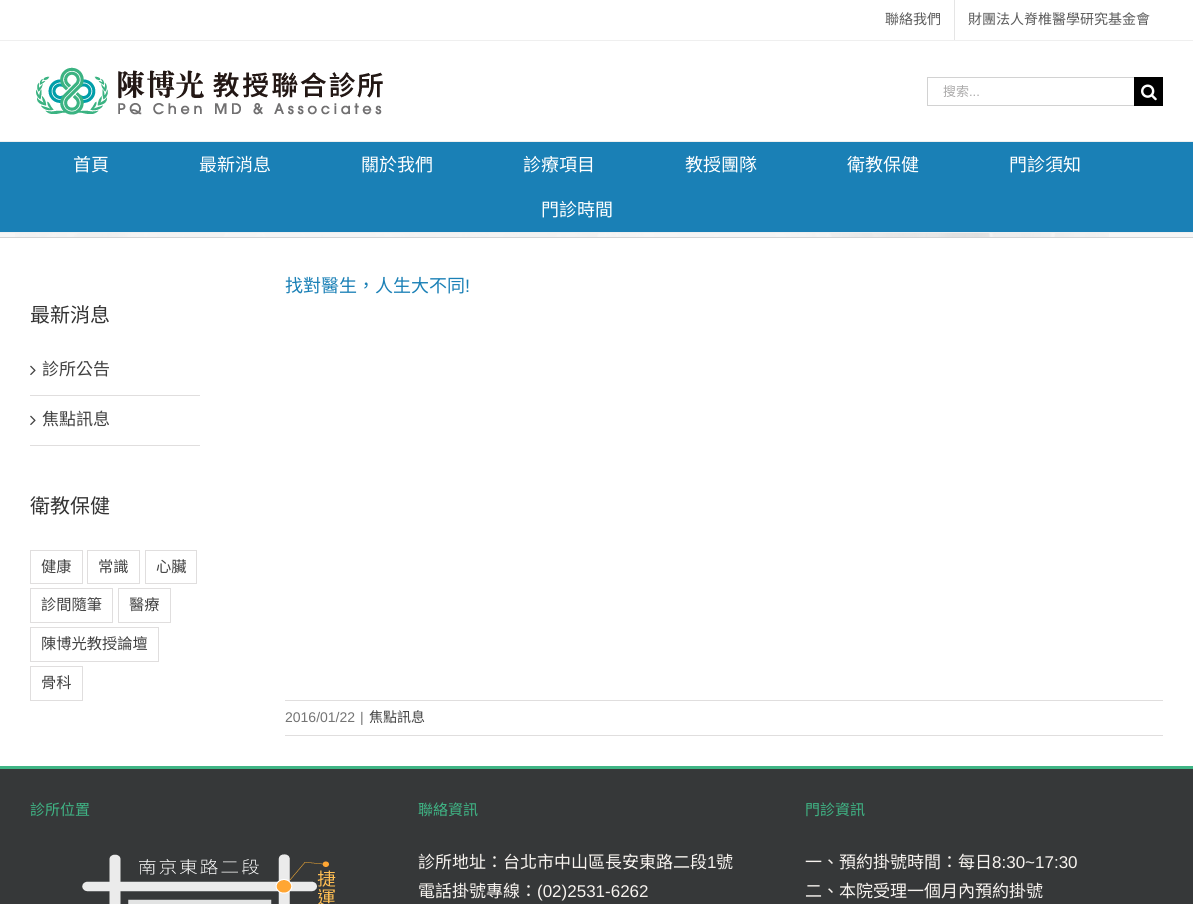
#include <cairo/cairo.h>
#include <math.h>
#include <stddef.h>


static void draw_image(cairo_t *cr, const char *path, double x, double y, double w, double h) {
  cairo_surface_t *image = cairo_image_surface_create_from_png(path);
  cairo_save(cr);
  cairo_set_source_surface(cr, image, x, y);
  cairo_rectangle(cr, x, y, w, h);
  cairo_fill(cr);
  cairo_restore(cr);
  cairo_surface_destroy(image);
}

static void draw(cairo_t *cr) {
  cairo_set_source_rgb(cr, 1, 1, 1);
  cairo_paint(cr);
  cairo_set_source_rgb(cr, 239 / 255.0, 239 / 255.0, 239 / 255.0);
  cairo_rectangle(cr, 0, 40, 1193, 1);
  cairo_fill(cr);
  cairo_set_source_rgb(cr, 229 / 255.0, 229 / 255.0, 229 / 255.0);
  cairo_rectangle(cr, 954, 0, 1, 40);
  cairo_fill(cr);
  cairo_set_source_rgb(cr, 239 / 255.0, 239 / 255.0, 239 / 255.0);
  cairo_rectangle(cr, 0, 141, 1193, 1);
  cairo_fill(cr);
  draw_image(cr, "images/1.png", 36, 67, 347, 48);
  cairo_set_source_rgb(cr, 210 / 255.0, 210 / 255.0, 210 / 255.0);
  cairo_rectangle(cr, 927, 77, 207, 1);
  cairo_fill(cr);
  cairo_rectangle(cr, 927, 105, 207, 1);
  cairo_fill(cr);
  cairo_rectangle(cr, 927, 77, 1, 29);
  cairo_fill(cr);
  cairo_set_source_rgb(cr, 0, 0, 0);
  cairo_rectangle(cr, 1134, 77, 29, 29);
  cairo_fill(cr);
  draw_image(cr, "images/2.png", 1141, 84, 16, 17);
  cairo_set_source_rgb(cr, 26 / 255.0, 128 / 255.0, 182 / 255.0);
  cairo_rectangle(cr, 0, 142, 1193, 90);
  cairo_fill(cr);
  cairo_set_source_rgb(cr, 239 / 255.0, 239 / 255.0, 239 / 255.0);
  cairo_rectangle(cr, 0, 232, 1193, 1);
  cairo_fill(cr);
  cairo_set_source_rgb(cr, 246 / 255.0, 246 / 255.0, 246 / 255.0);
  cairo_rectangle(cr, 0, 233, 1193, 4);
  cairo_fill(cr);
  draw_image(cr, "images/3.png", 15, 233, 1094, 4);
  cairo_set_source_rgb(cr, 210 / 255.0, 211 / 255.0, 212 / 255.0);
  cairo_rectangle(cr, 0, 237, 1193, 1);
  cairo_fill(cr);
  cairo_set_source_rgb(cr, 224 / 255.0, 222 / 255.0, 222 / 255.0);
  cairo_rectangle(cr, 30, 395, 170, 1);
  cairo_fill(cr);
  draw_image(cr, "images/4.png", 30, 365, 6, 11);
  cairo_rectangle(cr, 30, 445, 170, 1);
  cairo_fill(cr);
  draw_image(cr, "images/4.png", 30, 415, 6, 11);
  cairo_rectangle(cr, 30.5, 550.5, 52, 33);
  cairo_set_line_width(cr, 1);
  cairo_stroke(cr);
  cairo_rectangle(cr, 87.5, 550.5, 52, 33);
  cairo_stroke(cr);
  cairo_rectangle(cr, 145.5, 550.5, 51, 33);
  cairo_stroke(cr);
  cairo_rectangle(cr, 30.5, 588.5, 82, 34);
  cairo_stroke(cr);
  cairo_rectangle(cr, 118.5, 588.5, 52, 34);
  cairo_stroke(cr);
  cairo_rectangle(cr, 30.5, 627.5, 128, 34);
  cairo_stroke(cr);
  cairo_rectangle(cr, 30.5, 666.5, 52, 34);
  cairo_stroke(cr);
  cairo_rectangle(cr, 285, 700, 878, 1);
  cairo_fill(cr);
  cairo_rectangle(cr, 285, 735, 878, 1);
  cairo_fill(cr);
  cairo_set_source_rgb(cr, 54 / 255.0, 56 / 255.0, 57 / 255.0);
  cairo_rectangle(cr, 0, 769, 1193, 135);
  cairo_fill(cr);
  cairo_set_source_rgb(cr, 63 / 255.0, 181 / 255.0, 133 / 255.0);
  cairo_rectangle(cr, 0, 766, 1193, 3);
  cairo_fill(cr);
  draw_image(cr, "images/5.png", 82, 854, 254, 50);
  cairo_select_font_face(cr, "Noto Sans CJK TC", CAIRO_FONT_SLANT_NORMAL, CAIRO_FONT_WEIGHT_NORMAL);
  cairo_set_font_size(cr, 14);
  cairo_set_source_rgb(cr, 91 / 255.0, 91 / 255.0, 91 / 255.0);
  cairo_move_to(cr, 885, 24);
  cairo_show_text(cr, "聯絡我們");
  cairo_move_to(cr, 968, 24);
  cairo_show_text(cr, "財團法人脊椎醫學研究基金會");
  cairo_set_font_size(cr, 13);
  cairo_set_source_rgb(cr, 170 / 255.0, 169 / 255.0, 169 / 255.0);
  cairo_move_to(cr, 943, 96);
  cairo_show_text(cr, "搜索");
  cairo_select_font_face(cr, "Liberation Sans", CAIRO_FONT_SLANT_NORMAL, CAIRO_FONT_WEIGHT_NORMAL);
  cairo_move_to(cr, 969, 96);
  cairo_show_text(cr, "...");
  cairo_select_font_face(cr, "Noto Sans CJK TC", CAIRO_FONT_SLANT_NORMAL, CAIRO_FONT_WEIGHT_NORMAL);
  cairo_set_font_size(cr, 18);
  cairo_set_source_rgb(cr, 1, 1, 1);
  cairo_move_to(cr, 73, 171);
  cairo_show_text(cr, "首頁");
  cairo_move_to(cr, 199, 171);
  cairo_show_text(cr, "最新消息");
  cairo_move_to(cr, 361, 171);
  cairo_show_text(cr, "關於我們");
  cairo_move_to(cr, 523, 171);
  cairo_show_text(cr, "診療項目");
  cairo_move_to(cr, 685, 171);
  cairo_show_text(cr, "教授團隊");
  cairo_move_to(cr, 847, 171);
  cairo_show_text(cr, "衛教保健");
  cairo_move_to(cr, 1009, 171);
  cairo_show_text(cr, "門診須知");
  cairo_move_to(cr, 541, 216);
  cairo_show_text(cr, "門診時間");
  cairo_set_font_size(cr, 20);
  cairo_set_source_rgb(cr, 51 / 255.0, 51 / 255.0, 51 / 255.0);
  cairo_move_to(cr, 30, 322);
  cairo_show_text(cr, "最新消息");
  cairo_set_font_size(cr, 17);
  cairo_set_source_rgb(cr, 65 / 255.0, 65 / 255.0, 65 / 255.0);
  cairo_move_to(cr, 42, 375);
  cairo_show_text(cr, "診所公告");
  cairo_move_to(cr, 42, 425);
  cairo_show_text(cr, "焦點訊息");
  cairo_set_font_size(cr, 20);
  cairo_set_source_rgb(cr, 51 / 255.0, 51 / 255.0, 51 / 255.0);
  cairo_move_to(cr, 30, 513);
  cairo_show_text(cr, "衛教保健");
  cairo_set_font_size(cr, 15.25);
  cairo_set_source_rgb(cr, 65 / 255.0, 65 / 255.0, 65 / 255.0);
  cairo_move_to(cr, 41, 572);
  cairo_show_text(cr, "健康");
  cairo_move_to(cr, 98, 572);
  cairo_show_text(cr, "常識");
  cairo_move_to(cr, 156, 572);
  cairo_show_text(cr, "心臟");
  cairo_move_to(cr, 41, 610);
  cairo_show_text(cr, "診間隨筆");
  cairo_move_to(cr, 129, 610);
  cairo_show_text(cr, "醫療");
  cairo_move_to(cr, 41, 649);
  cairo_show_text(cr, "陳博光教授論壇");
  cairo_move_to(cr, 41, 688);
  cairo_show_text(cr, "骨科");
  cairo_set_font_size(cr, 18);
  cairo_set_source_rgb(cr, 26 / 255.0, 128 / 255.0, 182 / 255.0);
  cairo_move_to(cr, 285, 292);
  cairo_show_text(cr, "找對醫生，人生大不同");
  cairo_select_font_face(cr, "Liberation Sans", CAIRO_FONT_SLANT_NORMAL, CAIRO_FONT_WEIGHT_NORMAL);
  cairo_move_to(cr, 465, 292);
  cairo_show_text(cr, "!");
  cairo_set_font_size(cr, 14);
  cairo_set_source_rgb(cr, 116 / 255.0, 116 / 255.0, 116 / 255.0);
  cairo_move_to(cr, 285, 722);
  cairo_show_text(cr, "2016/01/22");
  cairo_move_to(cr, 360, 722);
  cairo_show_text(cr, "|");
  cairo_select_font_face(cr, "Noto Sans CJK TC", CAIRO_FONT_SLANT_NORMAL, CAIRO_FONT_WEIGHT_NORMAL);
  cairo_set_source_rgb(cr, 65 / 255.0, 65 / 255.0, 65 / 255.0);
  cairo_move_to(cr, 369, 722);
  cairo_show_text(cr, "焦點訊息");
  cairo_set_font_size(cr, 15);
  cairo_set_source_rgb(cr, 63 / 255.0, 181 / 255.0, 133 / 255.0);
  cairo_move_to(cr, 30, 815);
  cairo_show_text(cr, "診所位置");
  cairo_move_to(cr, 418, 815);
  cairo_show_text(cr, "聯絡資訊");
  cairo_set_font_size(cr, 17);
  cairo_set_source_rgb(cr, 247 / 255.0, 243 / 255.0, 239 / 255.0);
  cairo_move_to(cr, 418, 868);
  cairo_show_text(cr, "診所地址：台北市中山區長安東路二段");
  cairo_select_font_face(cr, "Liberation Sans", CAIRO_FONT_SLANT_NORMAL, CAIRO_FONT_WEIGHT_NORMAL);
  cairo_move_to(cr, 707, 868);
  cairo_show_text(cr, "1");
  cairo_select_font_face(cr, "Noto Sans CJK TC", CAIRO_FONT_SLANT_NORMAL, CAIRO_FONT_WEIGHT_NORMAL);
  cairo_move_to(cr, 716, 868);
  cairo_show_text(cr, "號");
  cairo_move_to(cr, 418, 897);
  cairo_show_text(cr, "電話掛號專線：");
  cairo_select_font_face(cr, "Liberation Sans", CAIRO_FONT_SLANT_NORMAL, CAIRO_FONT_WEIGHT_NORMAL);
  cairo_move_to(cr, 537, 897);
  cairo_show_text(cr, "(02)2531-6262");
  cairo_select_font_face(cr, "Noto Sans CJK TC", CAIRO_FONT_SLANT_NORMAL, CAIRO_FONT_WEIGHT_NORMAL);
  cairo_set_font_size(cr, 15);
  cairo_set_source_rgb(cr, 63 / 255.0, 181 / 255.0, 133 / 255.0);
  cairo_move_to(cr, 805, 815);
  cairo_show_text(cr, "門診資訊");
  cairo_set_font_size(cr, 17);
  cairo_set_source_rgb(cr, 247 / 255.0, 243 / 255.0, 239 / 255.0);
  cairo_move_to(cr, 805, 868);
  cairo_show_text(cr, "一、預約掛號時間：每日");
  cairo_select_font_face(cr, "Liberation Sans", CAIRO_FONT_SLANT_NORMAL, CAIRO_FONT_WEIGHT_NORMAL);
  cairo_move_to(cr, 992, 868);
  cairo_show_text(cr, "8:30~17:30");
  cairo_select_font_face(cr, "Noto Sans CJK TC", CAIRO_FONT_SLANT_NORMAL, CAIRO_FONT_WEIGHT_NORMAL);
  cairo_move_to(cr, 805, 897);
  cairo_show_text(cr, "二、本院受理一個月內預約掛號");
}

int main(void) {
  cairo_surface_t *surface = cairo_image_surface_create(CAIRO_FORMAT_RGB24, 1193, 904);
  cairo_t *cr = cairo_create(surface);
  cairo_font_options_t *options = cairo_font_options_create();
  cairo_font_options_set_hint_metrics(options, CAIRO_HINT_METRICS_OFF);
  cairo_font_options_set_hint_style(options, CAIRO_HINT_STYLE_NONE);
  cairo_set_font_options(cr, options);
  cairo_set_miter_limit(cr, 4);
  draw(cr);
  cairo_surface_write_to_png(surface, "out.png");
  cairo_font_options_destroy(options);
  cairo_destroy(cr);
  cairo_surface_destroy(surface);
  return 0;
}
